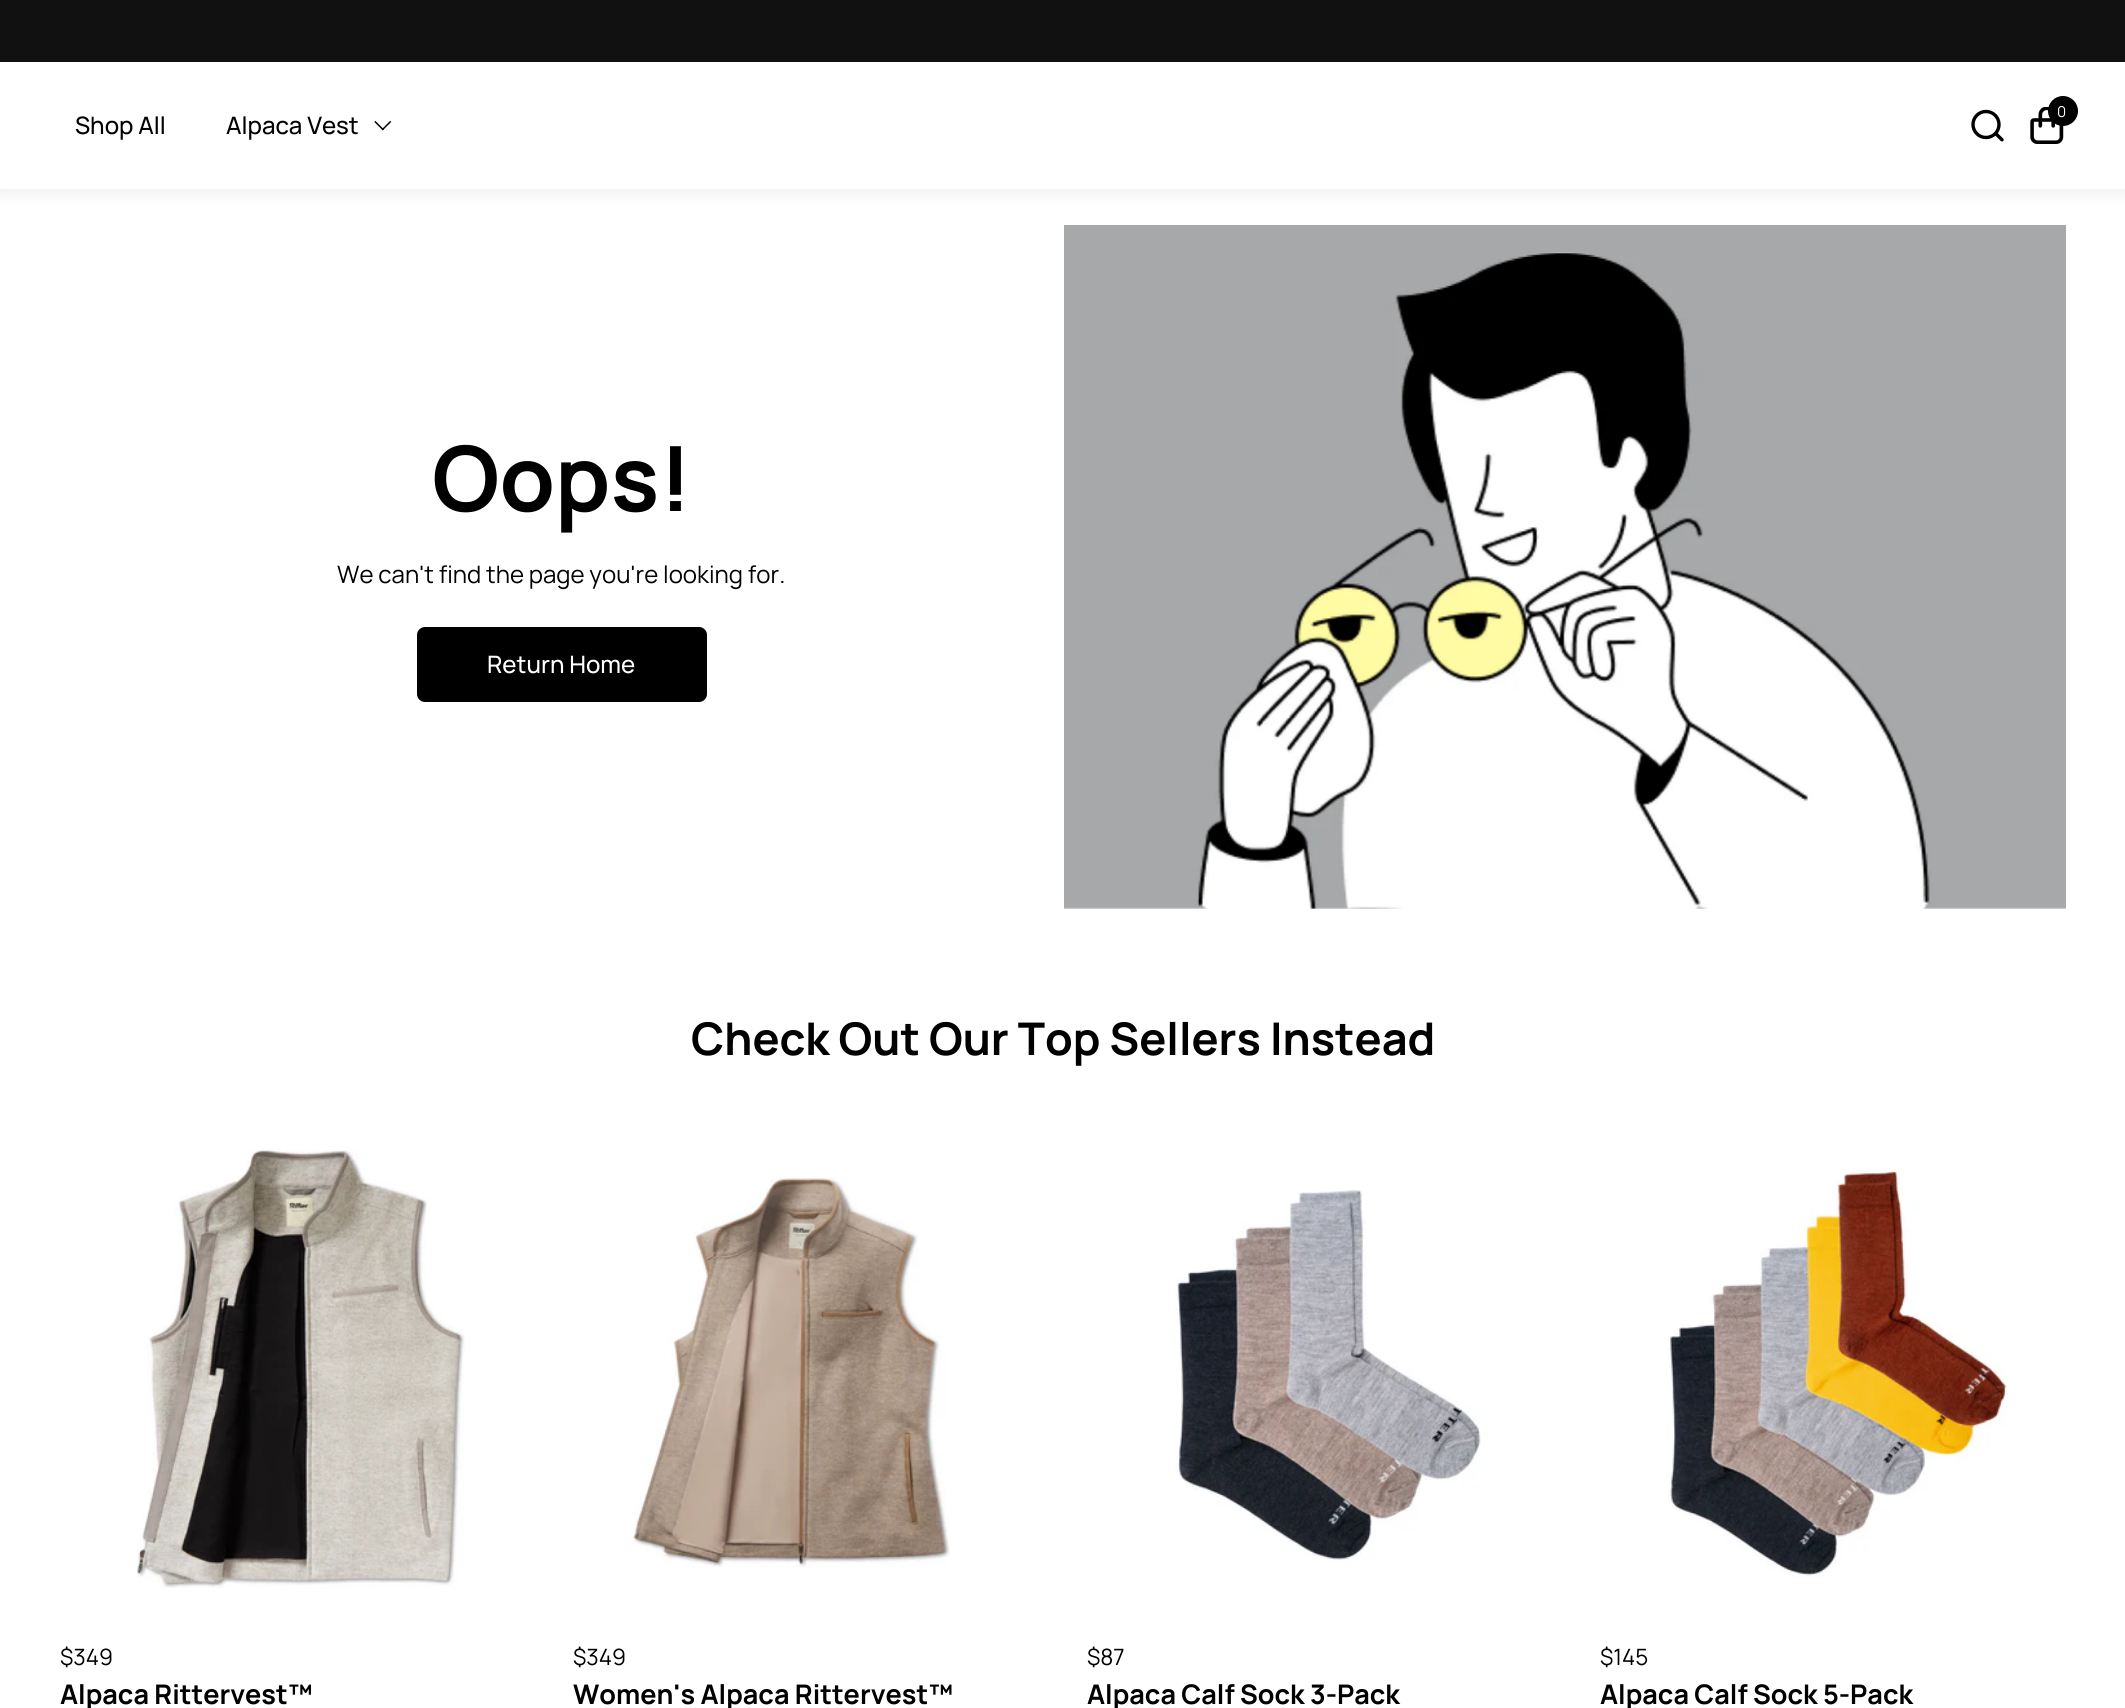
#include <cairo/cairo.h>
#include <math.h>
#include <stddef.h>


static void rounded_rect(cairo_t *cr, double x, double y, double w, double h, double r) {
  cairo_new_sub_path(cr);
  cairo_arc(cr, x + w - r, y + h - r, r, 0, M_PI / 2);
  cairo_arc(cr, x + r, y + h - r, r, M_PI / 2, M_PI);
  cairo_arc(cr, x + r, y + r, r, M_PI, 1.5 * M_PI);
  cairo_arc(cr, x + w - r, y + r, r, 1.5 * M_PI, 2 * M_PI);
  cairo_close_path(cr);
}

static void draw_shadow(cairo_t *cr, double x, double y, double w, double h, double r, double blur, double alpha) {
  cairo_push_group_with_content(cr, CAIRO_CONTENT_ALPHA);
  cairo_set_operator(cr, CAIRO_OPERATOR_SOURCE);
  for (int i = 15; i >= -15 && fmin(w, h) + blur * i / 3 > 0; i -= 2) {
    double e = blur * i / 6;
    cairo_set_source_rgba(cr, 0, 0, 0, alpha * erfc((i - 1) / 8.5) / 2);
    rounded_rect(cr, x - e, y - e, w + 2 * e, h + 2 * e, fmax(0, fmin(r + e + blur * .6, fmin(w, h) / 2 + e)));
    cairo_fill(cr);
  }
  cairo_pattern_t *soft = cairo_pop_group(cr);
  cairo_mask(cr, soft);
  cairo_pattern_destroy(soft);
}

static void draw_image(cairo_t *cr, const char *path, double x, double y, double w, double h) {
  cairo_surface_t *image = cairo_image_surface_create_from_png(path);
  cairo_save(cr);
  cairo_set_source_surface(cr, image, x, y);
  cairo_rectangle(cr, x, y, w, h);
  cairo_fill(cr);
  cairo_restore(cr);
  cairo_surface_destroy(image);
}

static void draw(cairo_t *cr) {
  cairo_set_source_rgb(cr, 1, 1, 1);
  cairo_paint(cr);
  cairo_set_source_rgb(cr, 0, 0, 0);
  draw_shadow(cr, -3, 0, 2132, 195, 0, 7.5, 0.06);
  cairo_set_source_rgb(cr, 1, 1, 1);
  cairo_rectangle(cr, 0, 62, 2125, 127);
  cairo_fill(cr);
  cairo_set_source_rgb(cr, 17 / 255.0, 17 / 255.0, 17 / 255.0);
  cairo_rectangle(cr, 0, 0, 2125, 62);
  cairo_fill(cr);
  draw_image(cr, "images/1.png", 1971, 109, 33, 33);
  cairo_set_source_rgb(cr, 0, 0, 0);
  cairo_arc(cr, 2063, 111, 15, 0, 2 * M_PI);
  cairo_fill(cr);
  draw_image(cr, "images/3.png", 374, 120, 18, 11);
  rounded_rect(cr, 418, 628, 288, 73, 7);
  cairo_fill_preserve(cr);
  cairo_stroke(cr);
  draw_image(cr, "images/4.png", 1064, 225, 1002, 684);
  draw_image(cr, "images/5.png", 137, 1149, 328, 439);
  draw_image(cr, "images/6.png", 633, 1178, 318, 389);
  draw_image(cr, "images/7.png", 1175, 1190, 306, 372);
  draw_image(cr, "images/8.png", 1668, 1169, 340, 409);
  cairo_select_font_face(cr, "Manrope", CAIRO_FONT_SLANT_NORMAL, CAIRO_FONT_WEIGHT_NORMAL);
  cairo_set_font_size(cr, 15);
  cairo_set_source_rgb(cr, 1, 1, 1);
  cairo_move_to(cr, 2057, 117);
  cairo_show_text(cr, "0");
  draw_image(cr, "images/2.png", 2030, 107, 34, 37);
  cairo_select_font_face(cr, "Manrope Medium", CAIRO_FONT_SLANT_NORMAL, CAIRO_FONT_WEIGHT_NORMAL);
  cairo_set_font_size(cr, 24);
  cairo_set_source_rgb(cr, 0, 0, 0);
  cairo_move_to(cr, 75, 134);
  cairo_show_text(cr, "Shop All");
  cairo_move_to(cr, 226, 134);
  cairo_show_text(cr, "Alpaca Vest");
  cairo_select_font_face(cr, "Manrope", CAIRO_FONT_SLANT_NORMAL, CAIRO_FONT_WEIGHT_BOLD);
  cairo_set_font_size(cr, 90);
  cairo_move_to(cr, 432, 511);
  cairo_show_text(cr, "Oops!");
  cairo_select_font_face(cr, "Manrope", CAIRO_FONT_SLANT_NORMAL, CAIRO_FONT_WEIGHT_NORMAL);
  cairo_set_font_size(cr, 24);
  cairo_move_to(cr, 337, 583);
  cairo_show_text(cr, "We can't find the page you're looking for.");
  cairo_select_font_face(cr, "Manrope Medium", CAIRO_FONT_SLANT_NORMAL, CAIRO_FONT_WEIGHT_NORMAL);
  cairo_set_source_rgb(cr, 1, 1, 1);
  cairo_move_to(cr, 487, 673);
  cairo_show_text(cr, "Return Home");
  cairo_select_font_face(cr, "Manrope", CAIRO_FONT_SLANT_NORMAL, CAIRO_FONT_WEIGHT_BOLD);
  cairo_set_font_size(cr, 45);
  cairo_set_source_rgb(cr, 0, 0, 0);
  cairo_move_to(cr, 691, 1055);
  cairo_show_text(cr, "Check Out Our Top Sellers Instead");
  cairo_select_font_face(cr, "Manrope", CAIRO_FONT_SLANT_NORMAL, CAIRO_FONT_WEIGHT_NORMAL);
  cairo_set_font_size(cr, 22.5);
  cairo_move_to(cr, 60, 1665);
  cairo_show_text(cr, "$349");
  cairo_select_font_face(cr, "Manrope", CAIRO_FONT_SLANT_NORMAL, CAIRO_FONT_WEIGHT_BOLD);
  cairo_set_font_size(cr, 27);
  cairo_move_to(cr, 60, 1704);
  cairo_show_text(cr, "Alpaca Rittervest™");
  cairo_select_font_face(cr, "Manrope", CAIRO_FONT_SLANT_NORMAL, CAIRO_FONT_WEIGHT_NORMAL);
  cairo_set_font_size(cr, 22.5);
  cairo_move_to(cr, 573, 1665);
  cairo_show_text(cr, "$349");
  cairo_select_font_face(cr, "Manrope", CAIRO_FONT_SLANT_NORMAL, CAIRO_FONT_WEIGHT_BOLD);
  cairo_set_font_size(cr, 27);
  cairo_move_to(cr, 573, 1704);
  cairo_show_text(cr, "Women's Alpaca Rittervest™");
  cairo_select_font_face(cr, "Manrope", CAIRO_FONT_SLANT_NORMAL, CAIRO_FONT_WEIGHT_NORMAL);
  cairo_set_font_size(cr, 22.5);
  cairo_move_to(cr, 1087, 1665);
  cairo_show_text(cr, "$87");
  cairo_select_font_face(cr, "Manrope", CAIRO_FONT_SLANT_NORMAL, CAIRO_FONT_WEIGHT_BOLD);
  cairo_set_font_size(cr, 27);
  cairo_move_to(cr, 1087, 1704);
  cairo_show_text(cr, "Alpaca Calf Sock 3-Pack");
  cairo_select_font_face(cr, "Manrope", CAIRO_FONT_SLANT_NORMAL, CAIRO_FONT_WEIGHT_NORMAL);
  cairo_set_font_size(cr, 22.5);
  cairo_move_to(cr, 1600, 1665);
  cairo_show_text(cr, "$145");
  cairo_select_font_face(cr, "Manrope", CAIRO_FONT_SLANT_NORMAL, CAIRO_FONT_WEIGHT_BOLD);
  cairo_set_font_size(cr, 27);
  cairo_move_to(cr, 1600, 1704);
  cairo_show_text(cr, "Alpaca Calf Sock 5-Pack");
}

int main(void) {
  cairo_surface_t *surface = cairo_image_surface_create(CAIRO_FORMAT_RGB24, 2125, 1708);
  cairo_t *cr = cairo_create(surface);
  cairo_font_options_t *options = cairo_font_options_create();
  cairo_font_options_set_hint_metrics(options, CAIRO_HINT_METRICS_OFF);
  cairo_font_options_set_hint_style(options, CAIRO_HINT_STYLE_NONE);
  cairo_set_font_options(cr, options);
  cairo_set_miter_limit(cr, 4);
  draw(cr);
  cairo_surface_write_to_png(surface, "out.png");
  cairo_font_options_destroy(options);
  cairo_destroy(cr);
  cairo_surface_destroy(surface);
  return 0;
}
